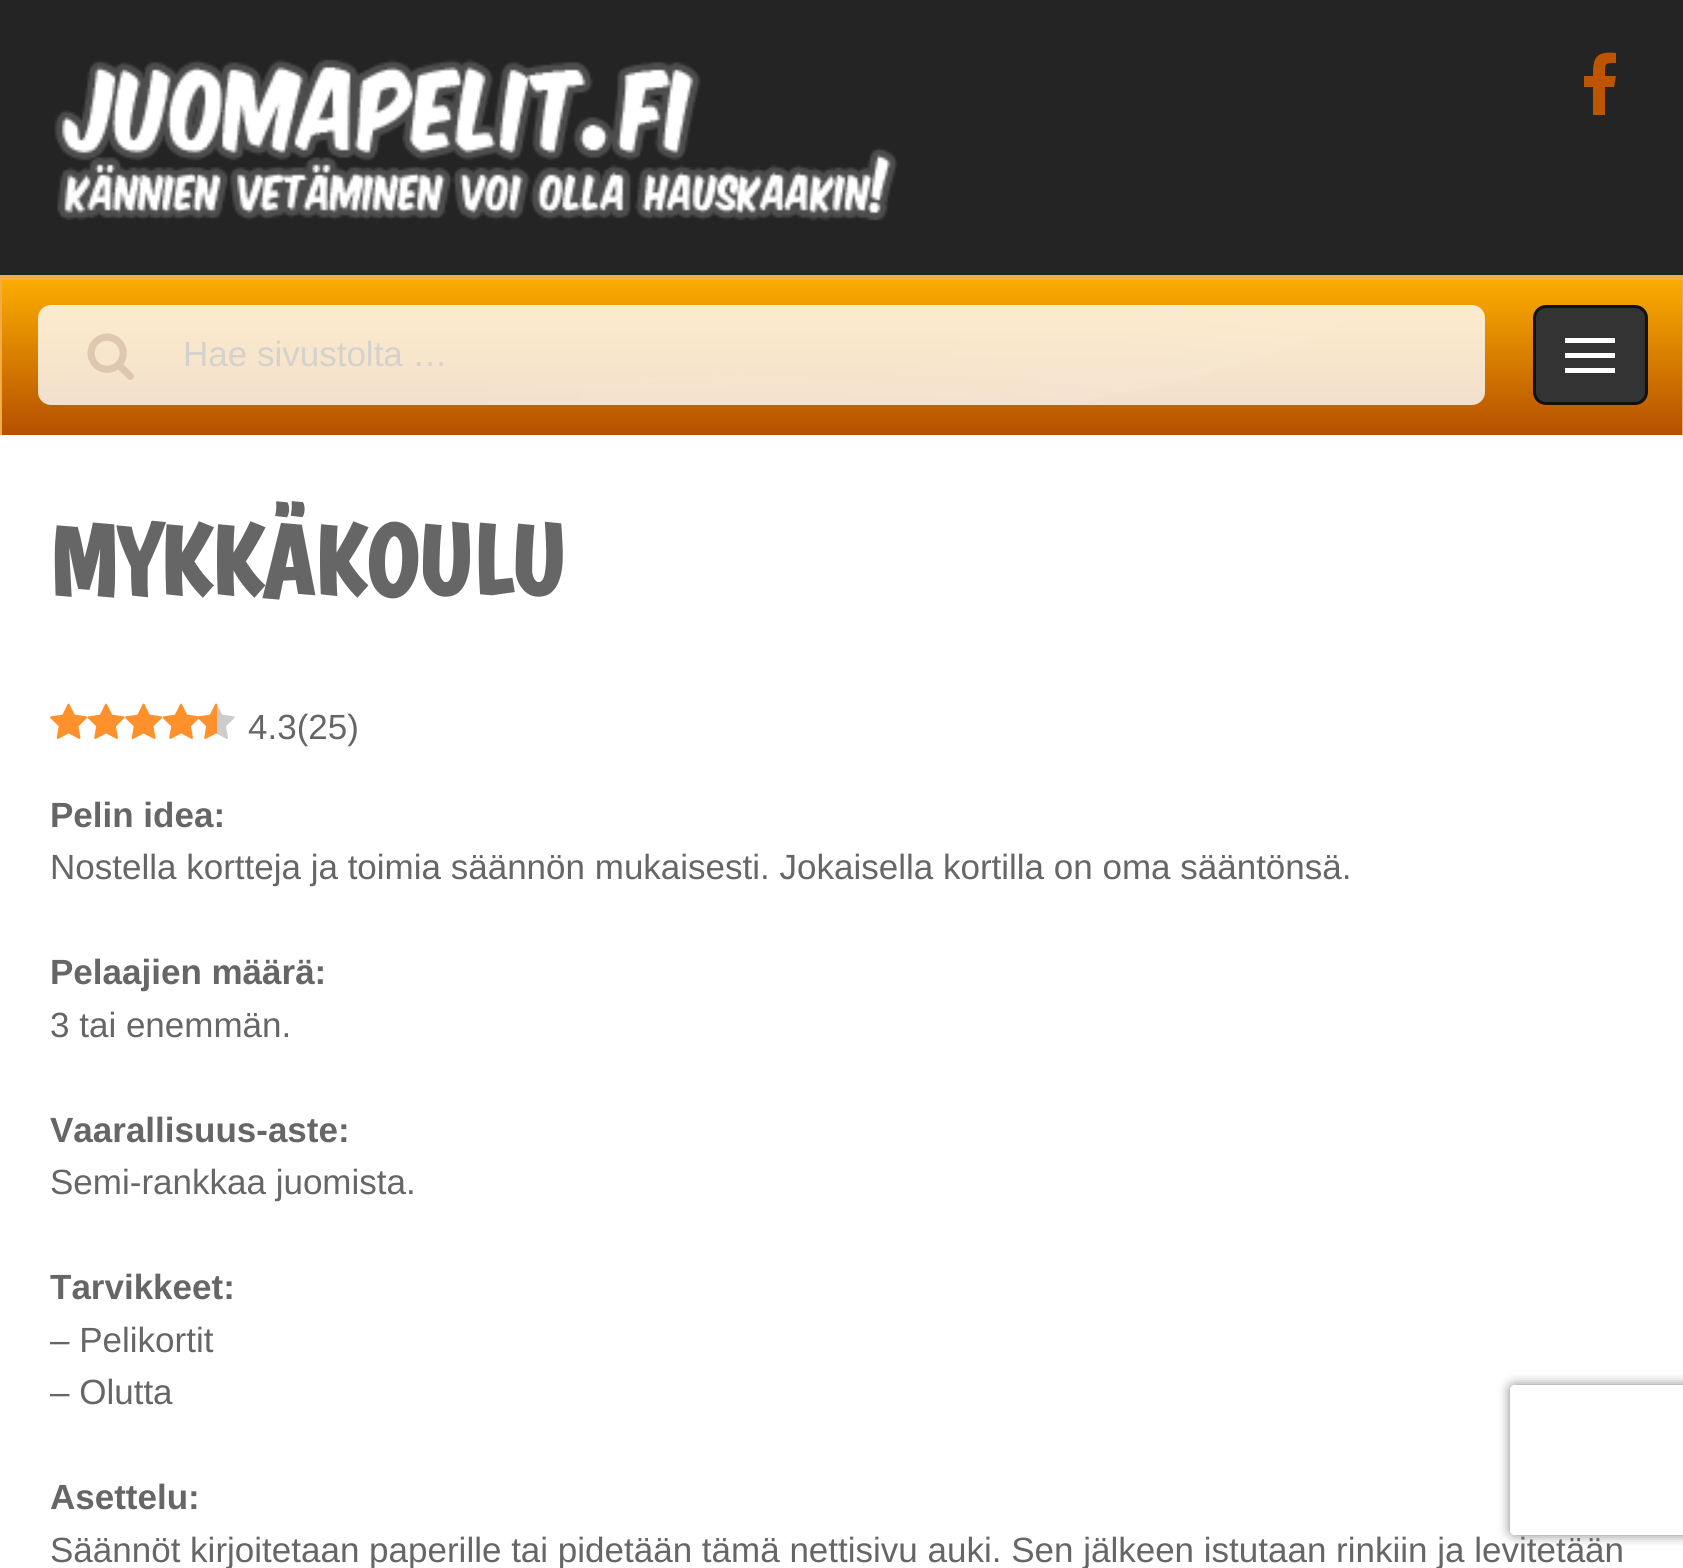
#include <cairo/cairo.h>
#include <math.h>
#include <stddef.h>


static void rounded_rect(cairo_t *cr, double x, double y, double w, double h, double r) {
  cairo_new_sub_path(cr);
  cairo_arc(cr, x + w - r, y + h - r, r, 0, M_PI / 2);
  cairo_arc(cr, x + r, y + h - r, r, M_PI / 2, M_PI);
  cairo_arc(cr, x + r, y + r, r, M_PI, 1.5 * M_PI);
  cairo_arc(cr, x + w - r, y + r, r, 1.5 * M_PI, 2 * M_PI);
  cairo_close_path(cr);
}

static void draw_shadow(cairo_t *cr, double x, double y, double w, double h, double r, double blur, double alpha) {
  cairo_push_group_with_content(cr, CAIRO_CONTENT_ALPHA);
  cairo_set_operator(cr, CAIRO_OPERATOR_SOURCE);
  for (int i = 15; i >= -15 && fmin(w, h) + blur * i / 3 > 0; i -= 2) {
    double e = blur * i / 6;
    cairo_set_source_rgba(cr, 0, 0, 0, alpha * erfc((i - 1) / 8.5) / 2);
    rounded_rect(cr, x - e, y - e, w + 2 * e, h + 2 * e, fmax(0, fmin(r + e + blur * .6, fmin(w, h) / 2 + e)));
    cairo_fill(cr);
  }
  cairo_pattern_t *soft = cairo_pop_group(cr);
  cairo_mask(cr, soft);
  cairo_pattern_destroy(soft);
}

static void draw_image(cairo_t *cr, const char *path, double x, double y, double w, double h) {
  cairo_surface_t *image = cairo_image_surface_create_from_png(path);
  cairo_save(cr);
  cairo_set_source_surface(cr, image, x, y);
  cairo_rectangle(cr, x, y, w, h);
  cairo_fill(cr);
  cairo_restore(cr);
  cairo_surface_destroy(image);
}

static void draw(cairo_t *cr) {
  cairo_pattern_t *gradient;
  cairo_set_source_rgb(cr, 36 / 255.0, 36 / 255.0, 36 / 255.0);
  cairo_paint(cr);
  draw_image(cr, "images/1.png", 54, 59, 844, 162);
  cairo_set_source_rgb(cr, 189 / 255.0, 85 / 255.0, 0);
  cairo_new_path(cr);
  cairo_move_to(cr, 1616, 53);
  cairo_line_to(cr, 1616, 63);
  cairo_curve_to(cr, 1604, 63, 1605, 63, 1605, 76);
  cairo_line_to(cr, 1616, 76);
  cairo_line_to(cr, 1614, 87);
  cairo_line_to(cr, 1605, 87);
  cairo_line_to(cr, 1605, 115);
  cairo_line_to(cr, 1593, 115);
  cairo_line_to(cr, 1593, 87);
  cairo_line_to(cr, 1584, 87);
  cairo_line_to(cr, 1584, 76);
  cairo_line_to(cr, 1593, 76);
  cairo_curve_to(cr, 1593, 71, 1593, 67, 1594, 63);
  cairo_curve_to(cr, 1596, 52, 1607, 52, 1616, 53);
  cairo_close_path(cr);
  cairo_fill(cr);
  cairo_set_source_rgb(cr, 0, 0, 0);
  draw_shadow(cr, 0, 278, 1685, 160, 0, 2.5, 0.6);
  gradient = cairo_pattern_create_linear(843, 435, 843, 275);
  cairo_pattern_add_color_stop_rgba(gradient, 0, 181 / 255.0, 80 / 255.0, 0, 1);
  cairo_pattern_add_color_stop_rgba(gradient, 1, 253 / 255.0, 175 / 255.0, 0, 1);
  cairo_set_source(cr, gradient);
  cairo_pattern_destroy(gradient);
  cairo_rectangle(cr, 2, 280, 1680, 155);
  cairo_fill(cr);
  cairo_save(cr);
  cairo_rectangle(cr, 0, 275, 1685, 160);
  cairo_clip(cr);
  cairo_set_source_rgb(cr, 243 / 255.0, 171 / 255.0, 70 / 255.0);
  cairo_set_fill_rule(cr, CAIRO_FILL_RULE_EVEN_ODD);
  cairo_new_path(cr);
  cairo_move_to(cr, -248, 28);
  cairo_line_to(cr, 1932, 28);
  cairo_line_to(cr, 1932, 682);
  cairo_line_to(cr, -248, 682);
  cairo_close_path(cr);
  cairo_move_to(cr, 2, 280);
  cairo_line_to(cr, 1682, 280);
  cairo_line_to(cr, 1682, 435);
  cairo_line_to(cr, 2, 435);
  cairo_close_path(cr);
  cairo_fill(cr);
  cairo_restore(cr);
  draw_image(cr, "images/2.png", 486, 305, 866, 100);
  cairo_set_source_rgb(cr, 51 / 255.0, 51 / 255.0, 51 / 255.0);
  rounded_rect(cr, 1534.5, 306.5, 112, 97, 11.5);
  cairo_fill_preserve(cr);
  cairo_set_source_rgb(cr, 17 / 255.0, 17 / 255.0, 17 / 255.0);
  cairo_set_line_width(cr, 3);
  cairo_stroke(cr);
  cairo_set_source_rgb(cr, 1, 1, 1);
  cairo_rectangle(cr, 1565, 353, 50, 5);
  cairo_fill(cr);
  cairo_rectangle(cr, 1565, 338, 50, 5);
  cairo_fill(cr);
  cairo_rectangle(cr, 1565, 368, 50, 5);
  cairo_fill(cr);
  cairo_set_source_rgba(cr, 1, 1, 1, 0.8);
  rounded_rect(cr, 38, 305, 1447, 100, 13);
  cairo_fill(cr);
  draw_image(cr, "images/3.png", 87, 333, 47, 47);
  cairo_set_source_rgb(cr, 1, 1, 1);
  cairo_rectangle(cr, 0, 435, 1683, 1133);
  cairo_fill(cr);
  draw_image(cr, "images/4.png", 50, 703, 38, 36);
  draw_image(cr, "images/5.png", 87, 703, 38, 36);
  draw_image(cr, "images/4.png", 125, 703, 38, 36);
  draw_image(cr, "images/5.png", 162, 703, 38, 36);
  draw_image(cr, "images/6.png", 197, 703, 38, 36);
  cairo_save(cr);
  cairo_set_fill_rule(cr, CAIRO_FILL_RULE_EVEN_ODD);
  cairo_new_path(cr);
  cairo_move_to(cr, 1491, 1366);
  cairo_line_to(cr, 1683, 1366);
  cairo_line_to(cr, 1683, 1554);
  cairo_line_to(cr, 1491, 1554);
  cairo_close_path(cr);
  cairo_move_to(cr, 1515, 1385);
  cairo_line_to(cr, 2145, 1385);
  cairo_curve_to(cr, 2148, 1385, 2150, 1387, 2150, 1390);
  cairo_line_to(cr, 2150, 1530);
  cairo_curve_to(cr, 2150, 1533, 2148, 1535, 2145, 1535);
  cairo_line_to(cr, 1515, 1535);
  cairo_curve_to(cr, 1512, 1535, 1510, 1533, 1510, 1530);
  cairo_line_to(cr, 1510, 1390);
  cairo_curve_to(cr, 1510, 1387, 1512, 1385, 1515, 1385);
  cairo_close_path(cr);
  cairo_clip(cr);
  cairo_set_source_rgb(cr, 128 / 255.0, 128 / 255.0, 128 / 255.0);
  draw_shadow(cr, 1510, 1385, 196, 150, 5, 6, 1);
  cairo_restore(cr);
  cairo_select_font_face(cr, "Liberation Sans", CAIRO_FONT_SLANT_NORMAL, CAIRO_FONT_WEIGHT_NORMAL);
  cairo_set_font_size(cr, 35);
  cairo_set_source_rgb(cr, 213 / 255.0, 209 / 255.0, 204 / 255.0);
  cairo_move_to(cr, 183, 366);
  cairo_show_text(cr, "Hae sivustolta …");
  cairo_select_font_face(cr, "Boogaloo", CAIRO_FONT_SLANT_NORMAL, CAIRO_FONT_WEIGHT_BOLD);
  cairo_set_font_size(cr, 100);
  cairo_set_source_rgb(cr, 102 / 255.0, 102 / 255.0, 102 / 255.0);
  cairo_move_to(cr, 50, 595);
  cairo_show_text(cr, "MYKKÄKOULU");
  cairo_select_font_face(cr, "Liberation Sans", CAIRO_FONT_SLANT_NORMAL, CAIRO_FONT_WEIGHT_NORMAL);
  cairo_set_font_size(cr, 35);
  cairo_move_to(cr, 248, 739);
  cairo_show_text(cr, "4.3(25)");
  cairo_select_font_face(cr, "Liberation Sans", CAIRO_FONT_SLANT_NORMAL, CAIRO_FONT_WEIGHT_BOLD);
  cairo_move_to(cr, 50, 827);
  cairo_show_text(cr, "Pelin idea:");
  cairo_select_font_face(cr, "Liberation Sans", CAIRO_FONT_SLANT_NORMAL, CAIRO_FONT_WEIGHT_NORMAL);
  cairo_move_to(cr, 50, 879);
  cairo_show_text(cr, "Nostella kortteja ja toimia säännön mukaisesti. Jokaisella kortilla on oma sääntönsä.");
  cairo_select_font_face(cr, "Liberation Sans", CAIRO_FONT_SLANT_NORMAL, CAIRO_FONT_WEIGHT_BOLD);
  cairo_move_to(cr, 50, 984);
  cairo_show_text(cr, "Pelaajien määrä:");
  cairo_select_font_face(cr, "Liberation Sans", CAIRO_FONT_SLANT_NORMAL, CAIRO_FONT_WEIGHT_NORMAL);
  cairo_move_to(cr, 50, 1037);
  cairo_show_text(cr, "3 tai enemmän.");
  cairo_select_font_face(cr, "Liberation Sans", CAIRO_FONT_SLANT_NORMAL, CAIRO_FONT_WEIGHT_BOLD);
  cairo_move_to(cr, 50, 1142);
  cairo_show_text(cr, "Vaarallisuus-aste:");
  cairo_select_font_face(cr, "Liberation Sans", CAIRO_FONT_SLANT_NORMAL, CAIRO_FONT_WEIGHT_NORMAL);
  cairo_move_to(cr, 50, 1194);
  cairo_show_text(cr, "Semi-rankkaa juomista.");
  cairo_select_font_face(cr, "Liberation Sans", CAIRO_FONT_SLANT_NORMAL, CAIRO_FONT_WEIGHT_BOLD);
  cairo_move_to(cr, 50, 1299);
  cairo_show_text(cr, "Tarvikkeet:");
  cairo_select_font_face(cr, "Liberation Sans", CAIRO_FONT_SLANT_NORMAL, CAIRO_FONT_WEIGHT_NORMAL);
  cairo_move_to(cr, 50, 1352);
  cairo_show_text(cr, "– Pelikortit");
  cairo_move_to(cr, 50, 1404);
  cairo_show_text(cr, "– Olutta");
  cairo_select_font_face(cr, "Liberation Sans", CAIRO_FONT_SLANT_NORMAL, CAIRO_FONT_WEIGHT_BOLD);
  cairo_move_to(cr, 50, 1509);
  cairo_show_text(cr, "Asettelu:");
  cairo_select_font_face(cr, "Liberation Sans", CAIRO_FONT_SLANT_NORMAL, CAIRO_FONT_WEIGHT_NORMAL);
  cairo_move_to(cr, 50, 1562);
  cairo_show_text(cr, "Säännöt kirjoitetaan paperille tai pidetään tämä nettisivu auki. Sen jälkeen istutaan rinkiin ja levitetään");
}

int main(void) {
  cairo_surface_t *surface = cairo_image_surface_create(CAIRO_FORMAT_RGB24, 1683, 1568);
  cairo_t *cr = cairo_create(surface);
  cairo_font_options_t *options = cairo_font_options_create();
  cairo_font_options_set_hint_metrics(options, CAIRO_HINT_METRICS_OFF);
  cairo_font_options_set_hint_style(options, CAIRO_HINT_STYLE_NONE);
  cairo_set_font_options(cr, options);
  cairo_set_miter_limit(cr, 4);
  draw(cr);
  cairo_surface_write_to_png(surface, "out.png");
  cairo_font_options_destroy(options);
  cairo_destroy(cr);
  cairo_surface_destroy(surface);
  return 0;
}
